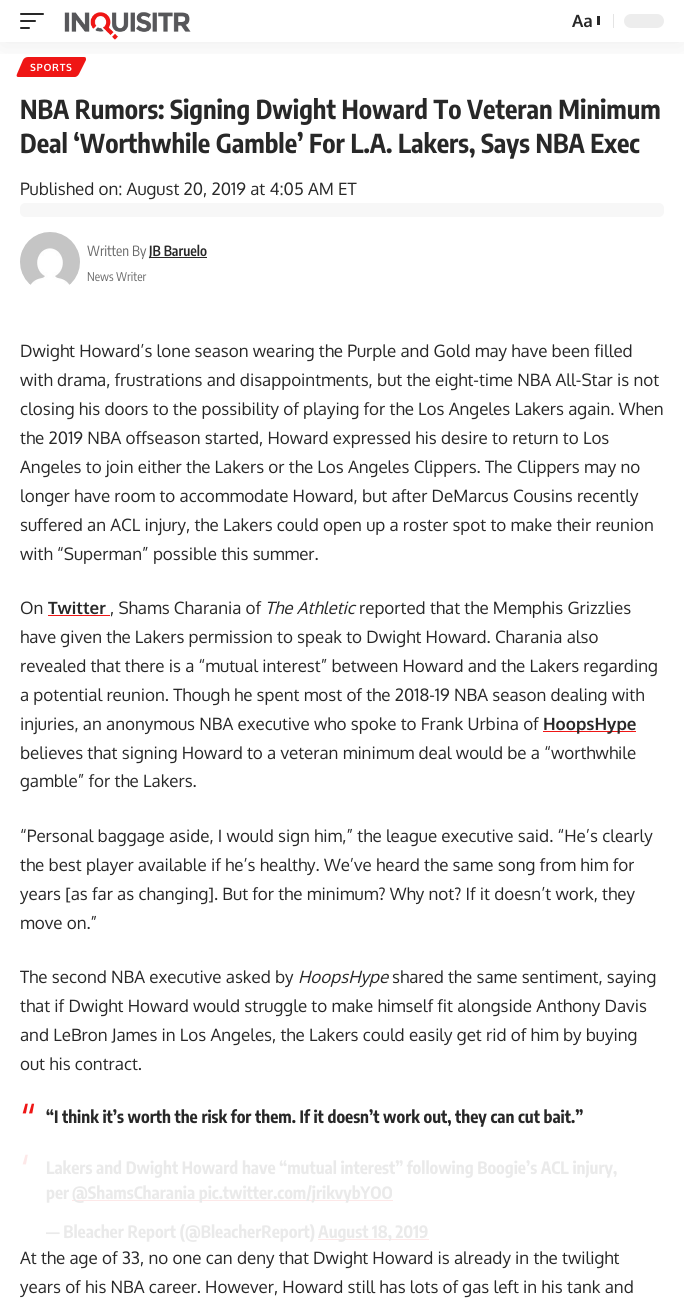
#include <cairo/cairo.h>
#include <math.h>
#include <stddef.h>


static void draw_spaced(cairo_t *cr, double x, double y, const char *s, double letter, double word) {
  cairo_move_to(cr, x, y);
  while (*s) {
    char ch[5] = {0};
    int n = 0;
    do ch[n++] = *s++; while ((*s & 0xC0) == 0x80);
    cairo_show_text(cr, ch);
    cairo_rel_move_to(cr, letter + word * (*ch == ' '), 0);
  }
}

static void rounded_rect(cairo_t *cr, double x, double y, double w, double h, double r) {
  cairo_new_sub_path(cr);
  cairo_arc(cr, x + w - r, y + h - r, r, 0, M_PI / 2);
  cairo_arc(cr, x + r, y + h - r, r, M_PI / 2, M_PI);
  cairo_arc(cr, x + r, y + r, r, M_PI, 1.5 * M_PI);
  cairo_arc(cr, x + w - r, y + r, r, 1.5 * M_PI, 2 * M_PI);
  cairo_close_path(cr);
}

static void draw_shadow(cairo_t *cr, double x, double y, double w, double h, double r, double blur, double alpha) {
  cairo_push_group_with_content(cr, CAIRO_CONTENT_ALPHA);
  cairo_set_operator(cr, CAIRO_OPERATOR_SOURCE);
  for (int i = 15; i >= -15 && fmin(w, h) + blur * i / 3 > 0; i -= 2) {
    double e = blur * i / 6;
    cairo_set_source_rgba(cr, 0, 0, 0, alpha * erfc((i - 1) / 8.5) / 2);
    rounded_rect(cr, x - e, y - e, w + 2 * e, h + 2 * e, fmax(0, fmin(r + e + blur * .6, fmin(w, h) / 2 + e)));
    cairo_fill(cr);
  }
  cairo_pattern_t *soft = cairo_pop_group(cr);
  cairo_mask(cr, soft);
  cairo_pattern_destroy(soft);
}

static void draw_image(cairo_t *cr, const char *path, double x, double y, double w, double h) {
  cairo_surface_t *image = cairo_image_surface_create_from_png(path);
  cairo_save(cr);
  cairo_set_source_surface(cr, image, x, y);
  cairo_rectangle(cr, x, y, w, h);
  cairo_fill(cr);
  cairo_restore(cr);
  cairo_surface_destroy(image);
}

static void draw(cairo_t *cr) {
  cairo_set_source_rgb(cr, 1, 1, 1);
  cairo_paint(cr);
  cairo_set_source_rgb(cr, 239 / 255.0, 22 / 255.0, 21 / 255.0);
  cairo_new_path(cr);
  cairo_move_to(cr, 28, 57);
  cairo_line_to(cr, 84, 57);
  cairo_curve_to(cr, 86, 57, 86, 58, 86, 60);
  cairo_line_to(cr, 79, 74);
  cairo_curve_to(cr, 78, 76, 76, 77, 75, 77);
  cairo_line_to(cr, 18, 77);
  cairo_curve_to(cr, 17, 77, 16, 76, 17, 74);
  cairo_line_to(cr, 23, 60);
  cairo_curve_to(cr, 24, 58, 26, 57, 28, 57);
  cairo_close_path(cr);
  cairo_fill(cr);
  cairo_save(cr);
  cairo_rectangle(cr, 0, 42, 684, 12);
  cairo_clip(cr);
  cairo_set_source_rgb(cr, 0, 0, 0);
  draw_shadow(cr, 0, 4, 684, 42, 0, 15, 0.07);
  cairo_restore(cr);
  cairo_set_source_rgb(cr, 40 / 255.0, 40 / 255.0, 40 / 255.0);
  rounded_rect(cr, 20, 13, 24, 2, 1);
  cairo_fill(cr);
  rounded_rect(cr, 20, 20, 16, 2, 1);
  cairo_fill(cr);
  rounded_rect(cr, 20, 27, 10, 2, 1);
  cairo_fill(cr);
  draw_image(cr, "images/1.png", 64, 12, 127, 28);
  cairo_rectangle(cr, 597, 16, 3, 9);
  cairo_fill(cr);
  cairo_set_source_rgb(cr, 228 / 255.0, 228 / 255.0, 228 / 255.0);
  cairo_rectangle(cr, 613, 14, 1, 14);
  cairo_fill(cr);
  cairo_set_source_rgb(cr, 237 / 255.0, 237 / 255.0, 237 / 255.0);
  rounded_rect(cr, 624, 14, 40, 14, 7);
  cairo_fill(cr);
  cairo_set_source_rgb(cr, 247 / 255.0, 247 / 255.0, 247 / 255.0);
  rounded_rect(cr, 20, 203, 644, 14, 5);
  cairo_fill(cr);
  draw_image(cr, "images/2.png", 20, 232, 60, 53);
  cairo_set_source_rgb(cr, 40 / 255.0, 40 / 255.0, 40 / 255.0);
  cairo_rectangle(cr, 149, 257, 58, 1);
  cairo_fill(cr);
  cairo_set_source_rgb(cr, 239 / 255.0, 22 / 255.0, 21 / 255.0);
  cairo_rectangle(cr, 48, 615, 62, 1);
  cairo_fill(cr);
  cairo_rectangle(cr, 543, 731, 93, 1);
  cairo_fill(cr);
  cairo_set_source_rgb(cr, 253 / 255.0, 232 / 255.0, 232 / 255.0);
  cairo_rectangle(cr, 72, 1200, 321, 1);
  cairo_fill(cr);
  cairo_rectangle(cr, 318, 1239, 111, 1);
  cairo_fill(cr);
  cairo_select_font_face(cr, "Oxygen", CAIRO_FONT_SLANT_NORMAL, CAIRO_FONT_WEIGHT_BOLD);
  cairo_set_font_size(cr, 17);
  cairo_set_source_rgb(cr, 40 / 255.0, 40 / 255.0, 40 / 255.0);
  cairo_move_to(cr, 572, 27);
  cairo_show_text(cr, "Aa");
  cairo_set_font_size(cr, 10);
  cairo_set_source_rgb(cr, 1, 1, 1);
  draw_spaced(cr, 30, 71, "SPORTS", 0.75, 0);
  cairo_select_font_face(cr, "Encode Sans Condensed", CAIRO_FONT_SLANT_NORMAL, CAIRO_FONT_WEIGHT_BOLD);
  cairo_set_font_size(cr, 26);
  cairo_set_source_rgb(cr, 40 / 255.0, 40 / 255.0, 40 / 255.0);
  cairo_move_to(cr, 20, 119);
  cairo_show_text(cr, "NBA Rumors: Signing Dwight Howard To Veteran Minimum");
  cairo_move_to(cr, 20, 153);
  cairo_show_text(cr, "Deal ‘Worthwhile Gamble’ For L.A. Lakers, Says NBA Exec");
  cairo_select_font_face(cr, "Oxygen", CAIRO_FONT_SLANT_NORMAL, CAIRO_FONT_WEIGHT_NORMAL);
  cairo_set_font_size(cr, 17);
  cairo_move_to(cr, 20, 195);
  cairo_show_text(cr, "Published on: August 20, 2019 at 4:05 AM ET");
  cairo_select_font_face(cr, "Encode Sans Condensed", CAIRO_FONT_SLANT_NORMAL, CAIRO_FONT_WEIGHT_NORMAL);
  cairo_set_font_size(cr, 14);
  cairo_set_source_rgb(cr, 102 / 255.0, 102 / 255.0, 102 / 255.0);
  cairo_move_to(cr, 87, 256);
  cairo_show_text(cr, "Written By");
  cairo_select_font_face(cr, "Encode Sans Condensed SemiBold", CAIRO_FONT_SLANT_NORMAL, CAIRO_FONT_WEIGHT_NORMAL);
  cairo_set_source_rgb(cr, 40 / 255.0, 40 / 255.0, 40 / 255.0);
  cairo_move_to(cr, 149, 256);
  cairo_show_text(cr, "JB Baruelo");
  cairo_select_font_face(cr, "Encode Sans Condensed", CAIRO_FONT_SLANT_NORMAL, CAIRO_FONT_WEIGHT_NORMAL);
  cairo_set_font_size(cr, 12);
  cairo_set_source_rgb(cr, 102 / 255.0, 102 / 255.0, 102 / 255.0);
  cairo_move_to(cr, 87, 281);
  cairo_show_text(cr, "News Writer");
  cairo_select_font_face(cr, "Oxygen", CAIRO_FONT_SLANT_NORMAL, CAIRO_FONT_WEIGHT_NORMAL);
  cairo_set_font_size(cr, 17);
  cairo_set_source_rgb(cr, 40 / 255.0, 40 / 255.0, 40 / 255.0);
  cairo_move_to(cr, 20, 357);
  cairo_show_text(cr, "Dwight Howard’s lone season wearing the Purple and Gold may have been filled");
  cairo_move_to(cr, 20, 386);
  cairo_show_text(cr, "with drama, frustrations and disappointments, but the eight-time NBA All-Star is not");
  cairo_move_to(cr, 20, 415);
  cairo_show_text(cr, "closing his doors to the possibility of playing for the Los Angeles Lakers again. When");
  cairo_move_to(cr, 20, 444);
  cairo_show_text(cr, "the 2019 NBA offseason started, Howard expressed his desire to return to Los");
  cairo_move_to(cr, 20, 473);
  cairo_show_text(cr, "Angeles to join either the Lakers or the Los Angeles Clippers. The Clippers may no");
  cairo_move_to(cr, 20, 502);
  cairo_show_text(cr, "longer have room to accommodate Howard, but after DeMarcus Cousins recently");
  cairo_move_to(cr, 20, 531);
  cairo_show_text(cr, "suffered an ACL injury, the Lakers could open up a roster spot to make their reunion");
  cairo_move_to(cr, 20, 560);
  cairo_show_text(cr, "with “Superman” possible this summer.");
  cairo_move_to(cr, 20, 614);
  cairo_show_text(cr, "On");
  cairo_select_font_face(cr, "Oxygen", CAIRO_FONT_SLANT_NORMAL, CAIRO_FONT_WEIGHT_BOLD);
  cairo_move_to(cr, 48, 614);
  cairo_show_text(cr, "Twitter");
  cairo_select_font_face(cr, "Oxygen", CAIRO_FONT_SLANT_NORMAL, CAIRO_FONT_WEIGHT_NORMAL);
  cairo_move_to(cr, 110, 614);
  cairo_show_text(cr, ", Shams Charania of");
  cairo_select_font_face(cr, "Oxygen", CAIRO_FONT_SLANT_ITALIC, CAIRO_FONT_WEIGHT_NORMAL);
  cairo_move_to(cr, 265, 614);
  cairo_show_text(cr, "The Athletic");
  cairo_select_font_face(cr, "Oxygen", CAIRO_FONT_SLANT_NORMAL, CAIRO_FONT_WEIGHT_NORMAL);
  cairo_move_to(cr, 359, 614);
  cairo_show_text(cr, "reported that the Memphis Grizzlies");
  cairo_move_to(cr, 20, 643);
  cairo_show_text(cr, "have given the Lakers permission to speak to Dwight Howard. Charania also");
  cairo_move_to(cr, 20, 672);
  cairo_show_text(cr, "revealed that there is a “mutual interest” between Howard and the Lakers regarding");
  cairo_move_to(cr, 20, 701);
  cairo_show_text(cr, "a potential reunion. Though he spent most of the 2018-19 NBA season dealing with");
  cairo_move_to(cr, 20, 730);
  cairo_show_text(cr, "injuries, an anonymous NBA executive who spoke to Frank Urbina of");
  cairo_select_font_face(cr, "Oxygen", CAIRO_FONT_SLANT_NORMAL, CAIRO_FONT_WEIGHT_BOLD);
  cairo_move_to(cr, 543, 730);
  cairo_show_text(cr, "HoopsHype");
  cairo_select_font_face(cr, "Oxygen", CAIRO_FONT_SLANT_NORMAL, CAIRO_FONT_WEIGHT_NORMAL);
  cairo_move_to(cr, 20, 759);
  cairo_show_text(cr, "believes that signing Howard to a veteran minimum deal would be a “worthwhile");
  cairo_move_to(cr, 20, 787);
  cairo_show_text(cr, "gamble” for the Lakers.");
  cairo_move_to(cr, 20, 842);
  cairo_show_text(cr, "“Personal baggage aside, I would sign him,” the league executive said. “He’s clearly");
  cairo_move_to(cr, 20, 871);
  cairo_show_text(cr, "the best player available if he’s healthy. We’ve heard the same song from him for");
  cairo_move_to(cr, 20, 900);
  cairo_show_text(cr, "years [as far as changing]. But for the minimum? Why not? If it doesn’t work, they");
  cairo_move_to(cr, 20, 929);
  cairo_show_text(cr, "move on.”");
  cairo_move_to(cr, 20, 983);
  cairo_show_text(cr, "The second NBA executive asked by");
  cairo_select_font_face(cr, "Oxygen", CAIRO_FONT_SLANT_ITALIC, CAIRO_FONT_WEIGHT_NORMAL);
  cairo_move_to(cr, 298, 983);
  cairo_show_text(cr, "HoopsHype");
  cairo_select_font_face(cr, "Oxygen", CAIRO_FONT_SLANT_NORMAL, CAIRO_FONT_WEIGHT_NORMAL);
  cairo_move_to(cr, 392, 983);
  cairo_show_text(cr, "shared the same sentiment, saying");
  cairo_move_to(cr, 20, 1012);
  cairo_show_text(cr, "that if Dwight Howard would struggle to make himself fit alongside Anthony Davis");
  cairo_move_to(cr, 20, 1041);
  cairo_show_text(cr, "and LeBron James in Los Angeles, the Lakers could easily get rid of him by buying");
  cairo_move_to(cr, 20, 1070);
  cairo_show_text(cr, "out his contract.");
  cairo_set_font_size(cr, 42);
  cairo_set_source_rgb(cr, 239 / 255.0, 22 / 255.0, 21 / 255.0);
  cairo_move_to(cr, 20, 1136);
  cairo_show_text(cr, "“");
  cairo_select_font_face(cr, "Encode Sans Condensed", CAIRO_FONT_SLANT_NORMAL, CAIRO_FONT_WEIGHT_BOLD);
  cairo_set_font_size(cr, 17);
  cairo_set_source_rgb(cr, 40 / 255.0, 40 / 255.0, 40 / 255.0);
  cairo_move_to(cr, 46, 1123);
  cairo_show_text(cr, "“I think it’s worth the risk for them. If it doesn’t work out, they can cut bait.”");
  cairo_select_font_face(cr, "Oxygen", CAIRO_FONT_SLANT_NORMAL, CAIRO_FONT_WEIGHT_NORMAL);
  cairo_set_font_size(cr, 42);
  cairo_set_source_rgb(cr, 253 / 255.0, 232 / 255.0, 232 / 255.0);
  cairo_move_to(cr, 20, 1187);
  cairo_show_text(cr, "‘");
  cairo_select_font_face(cr, "Encode Sans Condensed", CAIRO_FONT_SLANT_NORMAL, CAIRO_FONT_WEIGHT_BOLD);
  cairo_set_font_size(cr, 17);
  cairo_set_source_rgb(cr, 234 / 255.0, 234 / 255.0, 234 / 255.0);
  cairo_move_to(cr, 46, 1174);
  cairo_show_text(cr, "Lakers and Dwight Howard have “mutual interest” following Boogie’s ACL injury,");
  cairo_move_to(cr, 46, 1199);
  cairo_show_text(cr, "per");
  cairo_move_to(cr, 72, 1199);
  cairo_show_text(cr, "@ShamsCharania pic.twitter.com/jrikvybYOO");
  cairo_move_to(cr, 46, 1238);
  cairo_show_text(cr, "— Bleacher Report (@BleacherReport)");
  cairo_move_to(cr, 318, 1238);
  cairo_show_text(cr, "August 18, 2019");
  cairo_select_font_face(cr, "Oxygen", CAIRO_FONT_SLANT_NORMAL, CAIRO_FONT_WEIGHT_NORMAL);
  cairo_set_source_rgb(cr, 40 / 255.0, 40 / 255.0, 40 / 255.0);
  cairo_move_to(cr, 20, 1264);
  cairo_show_text(cr, "At the age of 33, no one can deny that Dwight Howard is already in the twilight");
  cairo_move_to(cr, 20, 1293);
  cairo_show_text(cr, "years of his NBA career. However, Howard still has lots of gas left in his tank and");
}

int main(void) {
  cairo_surface_t *surface = cairo_image_surface_create(CAIRO_FORMAT_RGB24, 684, 1306);
  cairo_t *cr = cairo_create(surface);
  cairo_font_options_t *options = cairo_font_options_create();
  cairo_font_options_set_hint_metrics(options, CAIRO_HINT_METRICS_OFF);
  cairo_font_options_set_hint_style(options, CAIRO_HINT_STYLE_NONE);
  cairo_set_font_options(cr, options);
  cairo_set_miter_limit(cr, 4);
  draw(cr);
  cairo_surface_write_to_png(surface, "out.png");
  cairo_font_options_destroy(options);
  cairo_destroy(cr);
  cairo_surface_destroy(surface);
  return 0;
}
